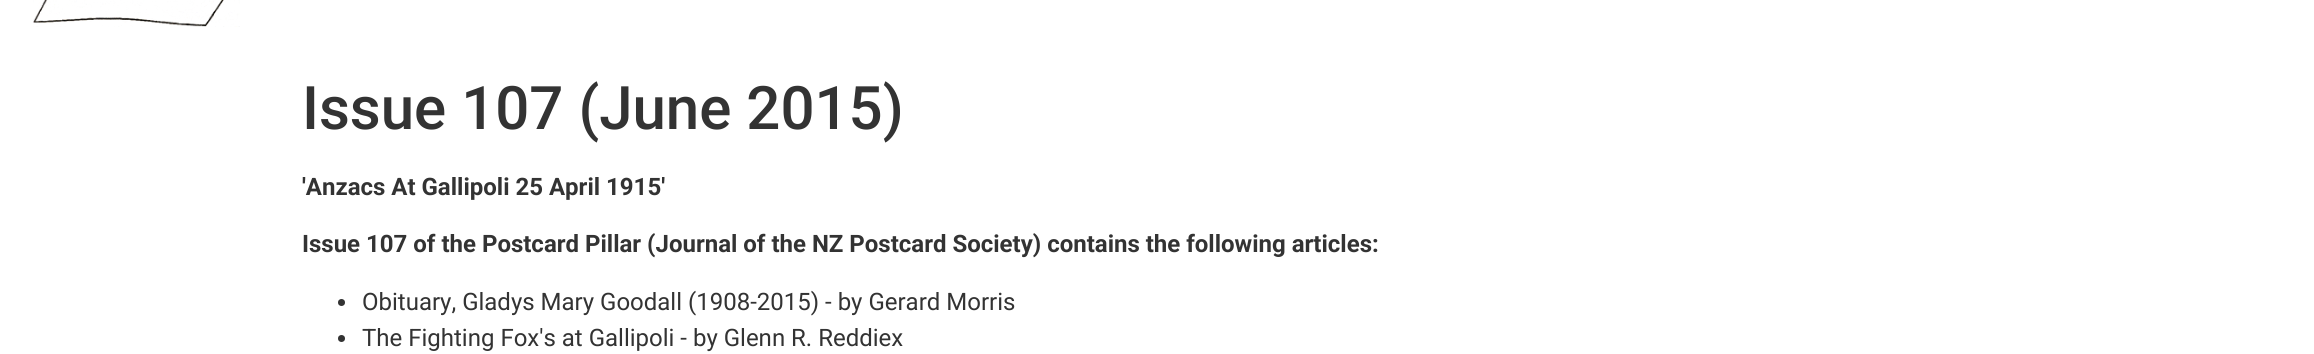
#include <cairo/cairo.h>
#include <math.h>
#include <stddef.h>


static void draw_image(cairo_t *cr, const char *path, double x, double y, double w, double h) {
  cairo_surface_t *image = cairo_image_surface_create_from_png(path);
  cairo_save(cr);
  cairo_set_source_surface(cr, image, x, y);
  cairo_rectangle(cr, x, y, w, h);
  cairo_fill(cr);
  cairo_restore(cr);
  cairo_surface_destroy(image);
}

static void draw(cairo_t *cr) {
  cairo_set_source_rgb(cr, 1, 1, 1);
  cairo_paint(cr);
  draw_image(cr, "images/1.png", 33, 0, 207, 27);
  cairo_set_source_rgb(cr, 51 / 255.0, 51 / 255.0, 51 / 255.0);
  cairo_arc(cr, 341.5, 302.5, 3.5, 0, 2 * M_PI);
  cairo_fill(cr);
  cairo_arc(cr, 341.5, 338.5, 3.5, 0, 2 * M_PI);
  cairo_fill(cr);
  cairo_select_font_face(cr, "Roboto Medium", CAIRO_FONT_SLANT_NORMAL, CAIRO_FONT_WEIGHT_NORMAL);
  cairo_set_font_size(cr, 60);
  cairo_move_to(cr, 302, 129);
  cairo_show_text(cr, "Issue 107 (June 2015)");
  cairo_select_font_face(cr, "Roboto", CAIRO_FONT_SLANT_NORMAL, CAIRO_FONT_WEIGHT_BOLD);
  cairo_set_font_size(cr, 24);
  cairo_move_to(cr, 302, 195);
  cairo_show_text(cr, "'Anzacs At Gallipoli 25 April 1915'");
  cairo_move_to(cr, 302, 252);
  cairo_show_text(cr, "Issue 107 of the Postcard Pillar (Journal of the NZ Postcard Society) contains the following articles:");
  cairo_select_font_face(cr, "Roboto", CAIRO_FONT_SLANT_NORMAL, CAIRO_FONT_WEIGHT_NORMAL);
  cairo_move_to(cr, 362, 310);
  cairo_show_text(cr, "Obituary, Gladys Mary Goodall (1908-2015) - by Gerard Morris");
  cairo_move_to(cr, 362, 346);
  cairo_show_text(cr, "The Fighting Fox's at Gallipoli - by Glenn R. Reddiex");
}

int main(void) {
  cairo_surface_t *surface = cairo_image_surface_create(CAIRO_FORMAT_RGB24, 2314, 354);
  cairo_t *cr = cairo_create(surface);
  cairo_font_options_t *options = cairo_font_options_create();
  cairo_font_options_set_hint_metrics(options, CAIRO_HINT_METRICS_OFF);
  cairo_font_options_set_hint_style(options, CAIRO_HINT_STYLE_NONE);
  cairo_set_font_options(cr, options);
  cairo_set_miter_limit(cr, 4);
  draw(cr);
  cairo_surface_write_to_png(surface, "out.png");
  cairo_font_options_destroy(options);
  cairo_destroy(cr);
  cairo_surface_destroy(surface);
  return 0;
}
